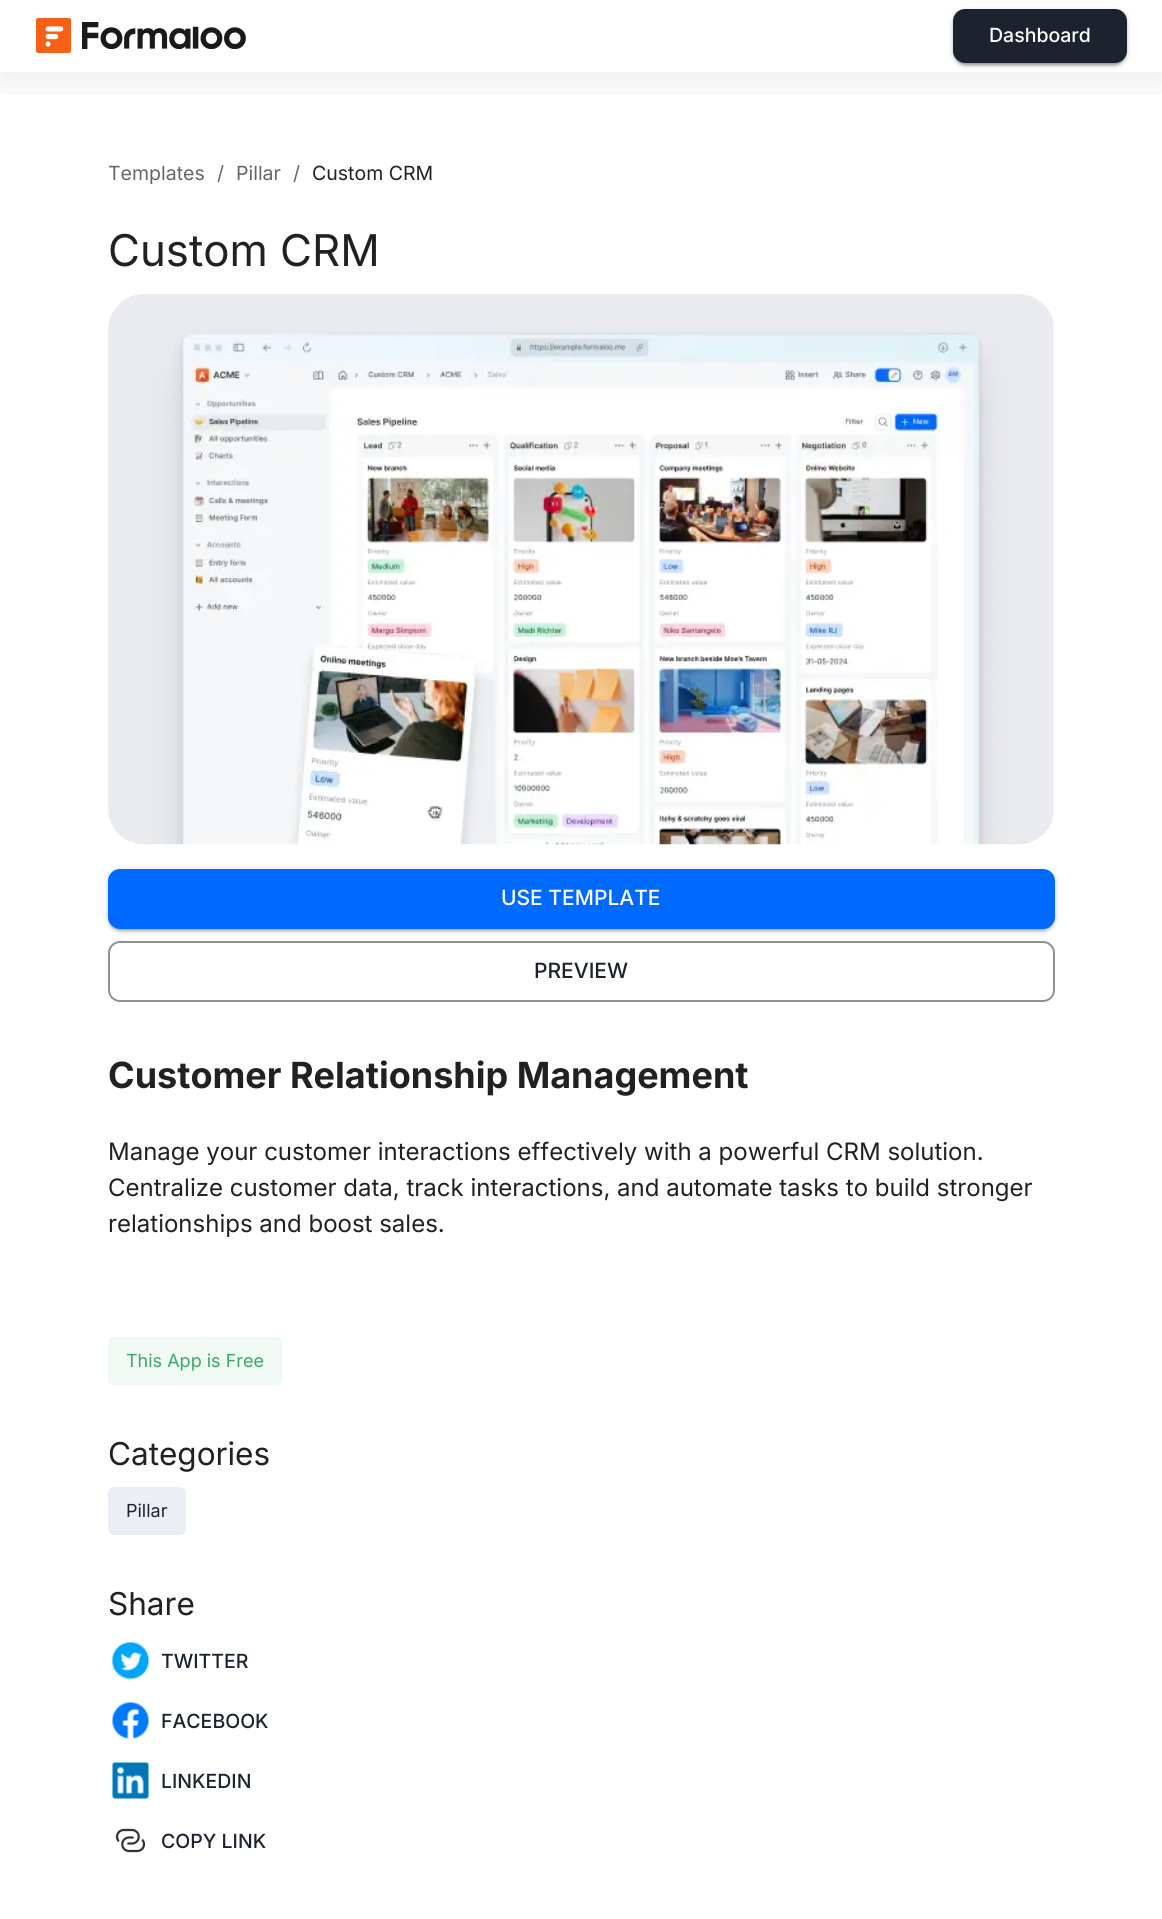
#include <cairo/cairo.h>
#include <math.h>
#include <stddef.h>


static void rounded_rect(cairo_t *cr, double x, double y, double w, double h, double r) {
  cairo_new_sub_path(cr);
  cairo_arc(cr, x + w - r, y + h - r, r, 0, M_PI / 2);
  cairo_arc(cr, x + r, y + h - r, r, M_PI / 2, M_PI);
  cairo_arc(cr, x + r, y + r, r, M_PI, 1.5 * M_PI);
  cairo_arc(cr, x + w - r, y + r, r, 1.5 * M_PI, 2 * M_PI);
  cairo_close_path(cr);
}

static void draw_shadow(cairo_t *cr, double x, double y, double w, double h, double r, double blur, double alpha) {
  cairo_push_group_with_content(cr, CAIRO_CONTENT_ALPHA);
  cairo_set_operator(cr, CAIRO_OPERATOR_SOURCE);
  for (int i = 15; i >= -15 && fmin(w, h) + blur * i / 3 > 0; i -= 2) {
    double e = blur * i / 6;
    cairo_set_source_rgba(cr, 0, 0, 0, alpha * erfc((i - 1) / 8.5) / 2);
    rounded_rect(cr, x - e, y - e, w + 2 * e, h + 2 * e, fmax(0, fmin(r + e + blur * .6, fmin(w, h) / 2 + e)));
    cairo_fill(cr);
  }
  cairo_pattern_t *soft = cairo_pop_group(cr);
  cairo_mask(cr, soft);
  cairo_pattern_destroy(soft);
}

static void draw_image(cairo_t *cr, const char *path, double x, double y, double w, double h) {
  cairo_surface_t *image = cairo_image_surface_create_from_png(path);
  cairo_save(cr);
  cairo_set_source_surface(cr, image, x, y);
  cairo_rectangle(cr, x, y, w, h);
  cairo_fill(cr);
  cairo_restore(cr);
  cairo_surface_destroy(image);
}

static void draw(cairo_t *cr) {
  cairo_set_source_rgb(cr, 1, 1, 1);
  cairo_paint(cr);
  cairo_save(cr);
  cairo_rectangle(cr, 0, 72, 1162, 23);
  cairo_clip(cr);
  cairo_set_source_rgb(cr, 0, 0, 0);
  draw_shadow(cr, 0, 3, 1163, 72, 0, 24, 0.1);
  cairo_restore(cr);
  draw_image(cr, "images/1.png", 36, 18, 210, 35);
  cairo_set_source_rgb(cr, 0, 0, 0);
  draw_shadow(cr, 953, 11, 174, 54, 12, 4, 0.12);
  draw_shadow(cr, 953, 12, 174, 54, 12, 1.5, 0.14);
  draw_shadow(cr, 956, 17, 168, 48, 9, 1, 0.2);
  cairo_set_source_rgb(cr, 28 / 255.0, 35 / 255.0, 46 / 255.0);
  rounded_rect(cr, 953, 9, 174, 54, 12);
  cairo_fill(cr);
  draw_image(cr, "images/2.png", 108, 294, 946, 551);
  cairo_set_source_rgb(cr, 0, 0, 0);
  draw_shadow(cr, 108, 870, 947, 60, 12, 4, 0.12);
  draw_shadow(cr, 108, 872, 947, 60, 12, 1.5, 0.14);
  draw_shadow(cr, 111, 876, 941, 54, 9, 1, 0.2);
  cairo_set_source_rgb(cr, 0, 106 / 255.0, 1);
  rounded_rect(cr, 108, 869, 947, 60, 12);
  cairo_fill(cr);
  rounded_rect(cr, 109, 942, 945, 59, 11);
  cairo_set_source_rgb(cr, 141 / 255.0, 145 / 255.0, 150 / 255.0);
  cairo_stroke(cr);
  cairo_set_source_rgb(cr, 240 / 255.0, 249 / 255.0, 244 / 255.0);
  rounded_rect(cr, 108, 1337, 174, 48, 6);
  cairo_fill(cr);
  cairo_set_source_rgb(cr, 235 / 255.0, 239 / 255.0, 245 / 255.0);
  rounded_rect(cr, 108, 1487, 78, 48, 6);
  cairo_fill(cr);
  draw_image(cr, "images/3.png", 112, 1642, 37, 37);
  draw_image(cr, "images/4.png", 112, 1702, 37, 37);
  draw_image(cr, "images/5.png", 112, 1762, 37, 37);
  draw_image(cr, "images/6.png", 115, 1828, 31, 25);
  cairo_select_font_face(cr, "Inter Medium", CAIRO_FONT_SLANT_NORMAL, CAIRO_FONT_WEIGHT_NORMAL);
  cairo_set_font_size(cr, 19.5);
  cairo_set_source_rgb(cr, 1, 1, 1);
  cairo_move_to(cr, 989, 42);
  cairo_show_text(cr, "Dashboard");
  cairo_select_font_face(cr, "Inter", CAIRO_FONT_SLANT_NORMAL, CAIRO_FONT_WEIGHT_NORMAL);
  cairo_set_source_rgb(cr, 102 / 255.0, 102 / 255.0, 102 / 255.0);
  cairo_move_to(cr, 108, 180);
  cairo_show_text(cr, "Templates");
  cairo_move_to(cr, 217, 180);
  cairo_show_text(cr, "/");
  cairo_move_to(cr, 236, 180);
  cairo_show_text(cr, "Pillar");
  cairo_move_to(cr, 293, 180);
  cairo_show_text(cr, "/");
  cairo_set_source_rgb(cr, 33 / 255.0, 33 / 255.0, 33 / 255.0);
  cairo_move_to(cr, 312, 180);
  cairo_show_text(cr, "Custom CRM");
  cairo_set_font_size(cr, 43.75);
  cairo_move_to(cr, 108, 266);
  cairo_show_text(cr, "Custom CRM");
  cairo_select_font_face(cr, "Inter Medium", CAIRO_FONT_SLANT_NORMAL, CAIRO_FONT_WEIGHT_NORMAL);
  cairo_set_font_size(cr, 21);
  cairo_set_source_rgb(cr, 1, 1, 1);
  cairo_move_to(cr, 501, 905);
  cairo_show_text(cr, "USE TEMPLATE");
  cairo_set_source_rgb(cr, 28 / 255.0, 35 / 255.0, 46 / 255.0);
  cairo_move_to(cr, 534, 978);
  cairo_show_text(cr, "PREVIEW");
  cairo_select_font_face(cr, "Inter", CAIRO_FONT_SLANT_NORMAL, CAIRO_FONT_WEIGHT_BOLD);
  cairo_set_font_size(cr, 36);
  cairo_set_source_rgb(cr, 33 / 255.0, 33 / 255.0, 33 / 255.0);
  cairo_move_to(cr, 108, 1088);
  cairo_show_text(cr, "Customer Relationship Management");
  cairo_select_font_face(cr, "Inter", CAIRO_FONT_SLANT_NORMAL, CAIRO_FONT_WEIGHT_NORMAL);
  cairo_set_font_size(cr, 24);
  cairo_move_to(cr, 108, 1160);
  cairo_show_text(cr, "Manage your customer interactions effectively with a powerful CRM solution.");
  cairo_move_to(cr, 108, 1196);
  cairo_show_text(cr, "Centralize customer data, track interactions, and automate tasks to build stronger");
  cairo_move_to(cr, 108, 1232);
  cairo_show_text(cr, "relationships and boost sales.");
  cairo_set_font_size(cr, 18);
  cairo_set_source_rgb(cr, 58 / 255.0, 167 / 255.0, 103 / 255.0);
  cairo_move_to(cr, 126, 1367);
  cairo_show_text(cr, "This App is Free");
  cairo_set_font_size(cr, 31.5);
  cairo_set_source_rgb(cr, 33 / 255.0, 33 / 255.0, 33 / 255.0);
  cairo_move_to(cr, 108, 1465);
  cairo_show_text(cr, "Categories");
  cairo_set_font_size(cr, 18);
  cairo_set_source_rgb(cr, 28 / 255.0, 35 / 255.0, 46 / 255.0);
  cairo_move_to(cr, 126, 1517);
  cairo_show_text(cr, "Pillar");
  cairo_set_font_size(cr, 31.5);
  cairo_set_source_rgb(cr, 33 / 255.0, 33 / 255.0, 33 / 255.0);
  cairo_move_to(cr, 108, 1615);
  cairo_show_text(cr, "Share");
  cairo_select_font_face(cr, "Inter Medium", CAIRO_FONT_SLANT_NORMAL, CAIRO_FONT_WEIGHT_NORMAL);
  cairo_set_font_size(cr, 19.5);
  cairo_set_source_rgb(cr, 28 / 255.0, 35 / 255.0, 46 / 255.0);
  cairo_move_to(cr, 161, 1668);
  cairo_show_text(cr, "TWITTER");
  cairo_move_to(cr, 161, 1728);
  cairo_show_text(cr, "FACEBOOK");
  cairo_move_to(cr, 161, 1788);
  cairo_show_text(cr, "LINKEDIN");
  cairo_move_to(cr, 161, 1848);
  cairo_show_text(cr, "COPY LINK");
}

int main(void) {
  cairo_surface_t *surface = cairo_image_surface_create(CAIRO_FORMAT_RGB24, 1162, 1919);
  cairo_t *cr = cairo_create(surface);
  cairo_font_options_t *options = cairo_font_options_create();
  cairo_font_options_set_hint_metrics(options, CAIRO_HINT_METRICS_OFF);
  cairo_font_options_set_hint_style(options, CAIRO_HINT_STYLE_NONE);
  cairo_set_font_options(cr, options);
  cairo_set_miter_limit(cr, 4);
  draw(cr);
  cairo_surface_write_to_png(surface, "out.png");
  cairo_font_options_destroy(options);
  cairo_destroy(cr);
  cairo_surface_destroy(surface);
  return 0;
}
